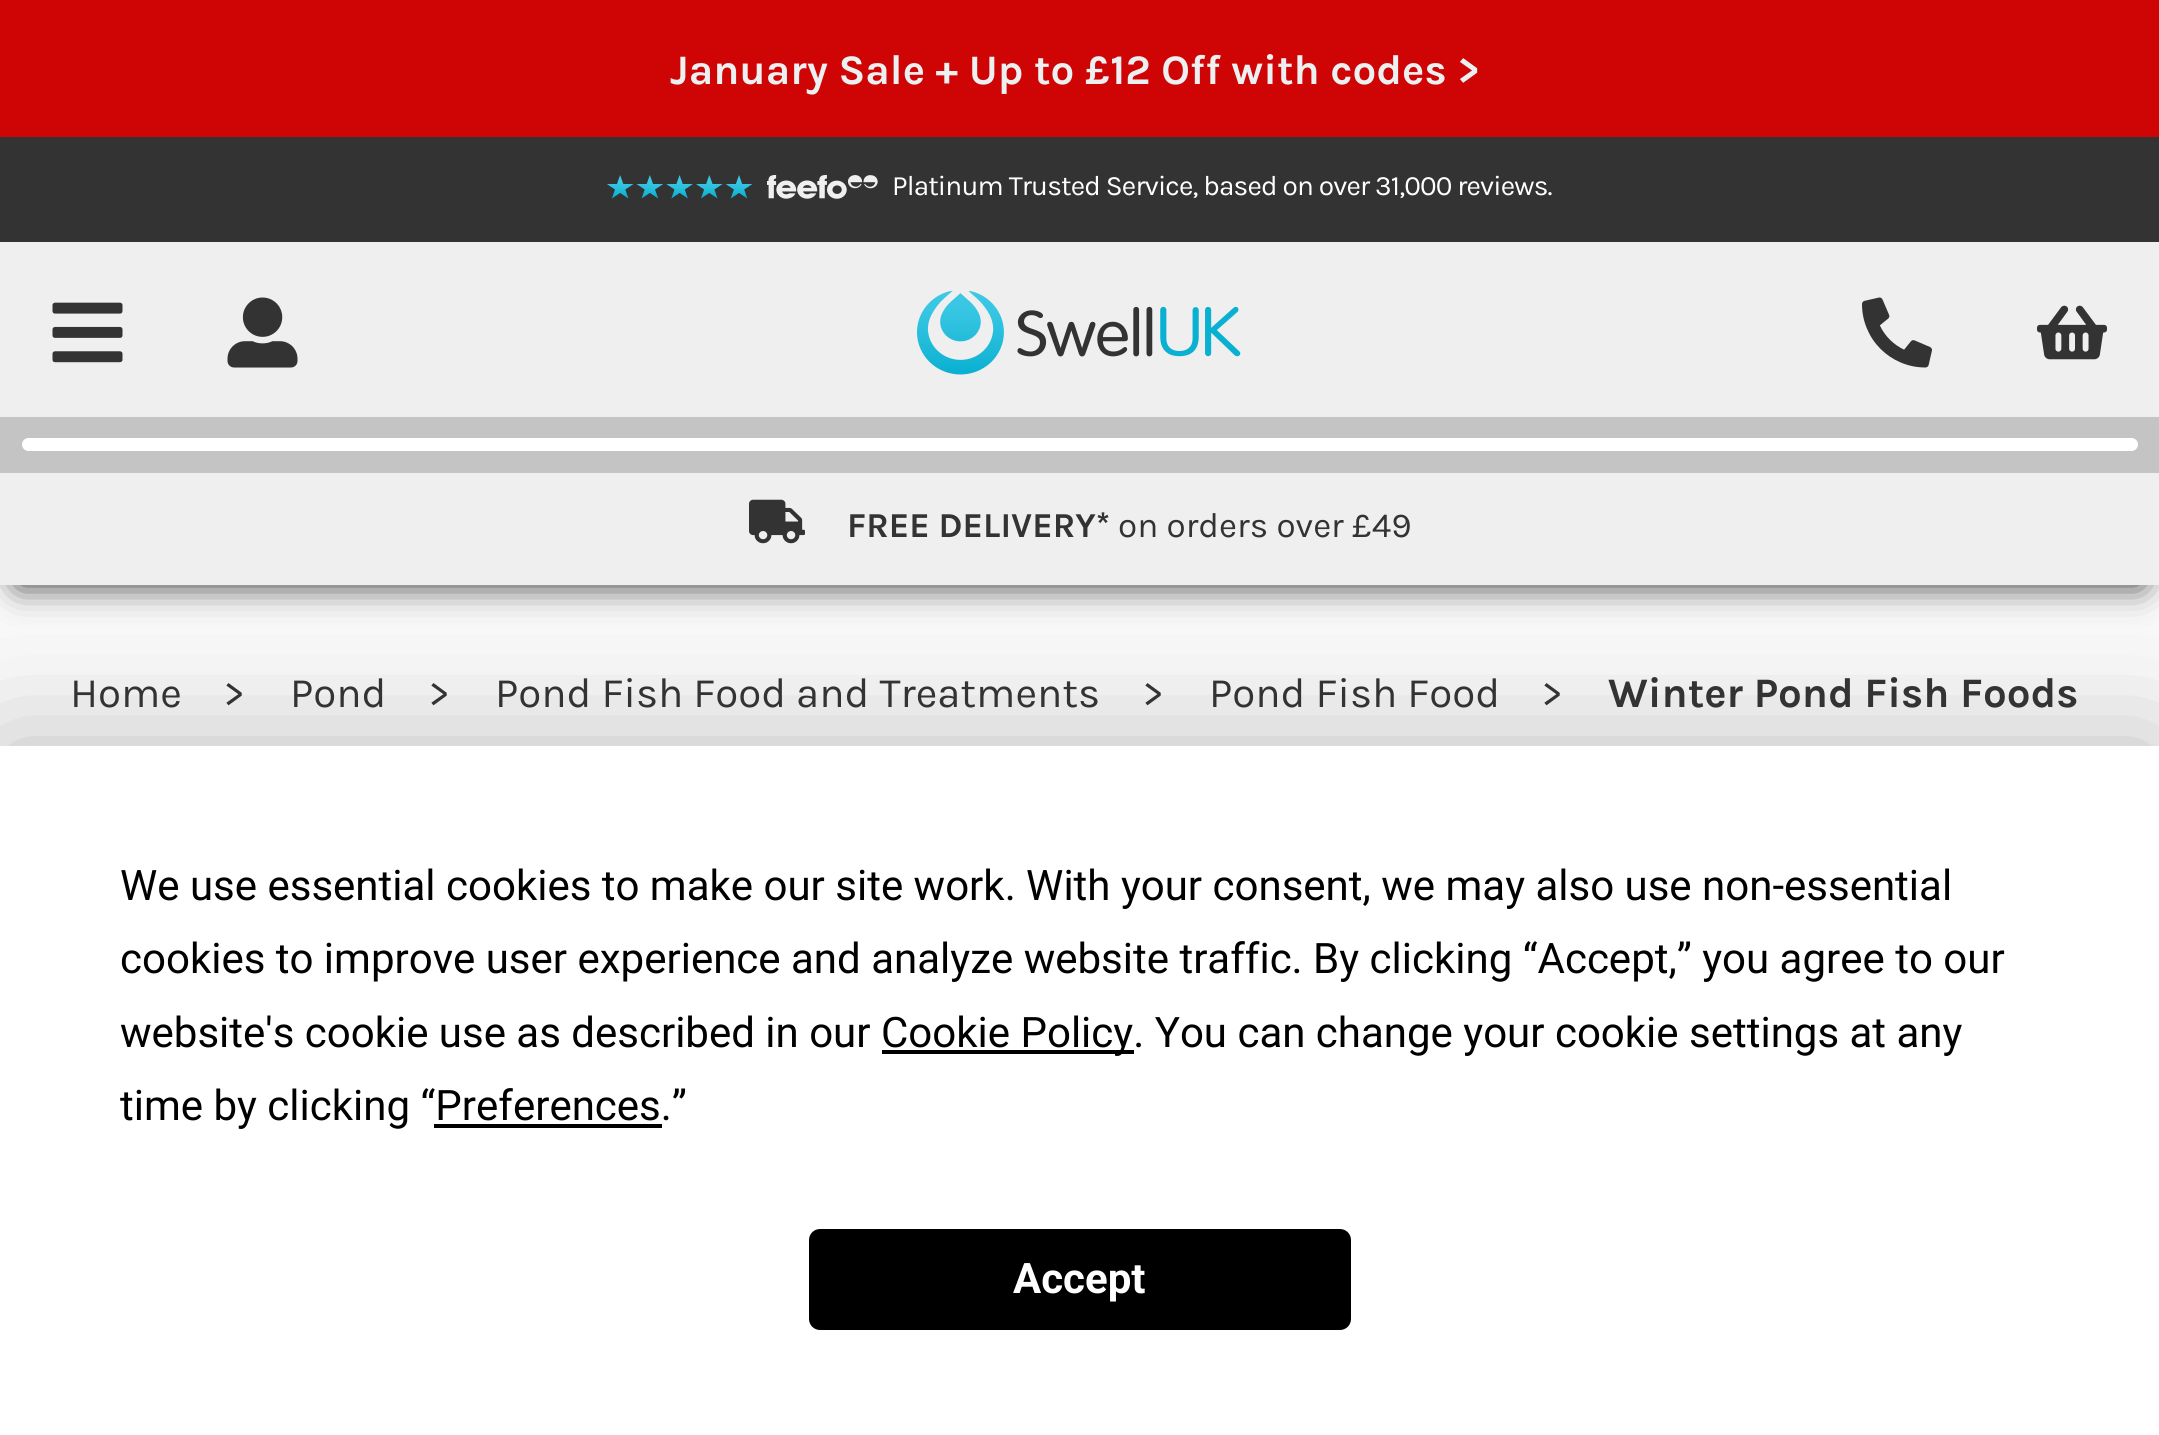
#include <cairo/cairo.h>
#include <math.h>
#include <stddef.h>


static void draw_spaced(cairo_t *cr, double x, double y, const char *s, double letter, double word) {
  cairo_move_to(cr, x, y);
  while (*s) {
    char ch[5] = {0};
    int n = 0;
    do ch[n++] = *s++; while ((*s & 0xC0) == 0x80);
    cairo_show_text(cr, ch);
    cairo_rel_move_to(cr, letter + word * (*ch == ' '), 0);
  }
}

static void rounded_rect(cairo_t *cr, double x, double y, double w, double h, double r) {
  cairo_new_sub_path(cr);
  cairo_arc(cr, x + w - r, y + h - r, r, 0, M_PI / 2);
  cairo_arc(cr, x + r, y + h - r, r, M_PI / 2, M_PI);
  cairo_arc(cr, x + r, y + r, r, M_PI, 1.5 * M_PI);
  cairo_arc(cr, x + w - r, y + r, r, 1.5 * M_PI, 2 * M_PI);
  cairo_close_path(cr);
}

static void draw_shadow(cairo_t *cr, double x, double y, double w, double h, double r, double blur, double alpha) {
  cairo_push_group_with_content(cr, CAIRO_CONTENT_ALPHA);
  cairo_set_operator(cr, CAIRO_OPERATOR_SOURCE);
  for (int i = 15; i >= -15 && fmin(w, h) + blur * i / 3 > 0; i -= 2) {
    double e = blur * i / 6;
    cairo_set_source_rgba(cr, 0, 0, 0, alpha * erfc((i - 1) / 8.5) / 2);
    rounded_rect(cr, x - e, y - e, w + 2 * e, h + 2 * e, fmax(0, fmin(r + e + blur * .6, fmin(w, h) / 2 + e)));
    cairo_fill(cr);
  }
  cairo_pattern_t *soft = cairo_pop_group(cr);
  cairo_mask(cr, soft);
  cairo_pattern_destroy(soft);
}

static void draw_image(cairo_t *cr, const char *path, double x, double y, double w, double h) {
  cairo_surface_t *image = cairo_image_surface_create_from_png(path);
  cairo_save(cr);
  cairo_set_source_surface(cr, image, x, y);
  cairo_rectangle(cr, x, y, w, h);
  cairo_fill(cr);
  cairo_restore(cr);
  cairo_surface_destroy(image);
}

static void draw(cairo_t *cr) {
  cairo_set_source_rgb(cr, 249 / 255.0, 249 / 255.0, 249 / 255.0);
  cairo_paint(cr);
  cairo_set_source_rgb(cr, 207 / 255.0, 5 / 255.0, 5 / 255.0);
  cairo_rectangle(cr, 0, 0, 2159, 137);
  cairo_fill(cr);
  cairo_set_source_rgb(cr, 239 / 255.0, 239 / 255.0, 239 / 255.0);
  cairo_rectangle(cr, 0, 242, 2159, 175);
  cairo_fill(cr);
  cairo_set_source_rgb(cr, 51 / 255.0, 51 / 255.0, 51 / 255.0);
  cairo_rectangle(cr, 0, 137, 2159, 105);
  cairo_fill(cr);
  draw_image(cr, "images/1.png", 607, 175, 146, 24);
  draw_image(cr, "images/2.png", 767, 175, 111, 24);
  draw_image(cr, "images/3.png", 52, 302, 71, 61);
  draw_image(cr, "images/4.png", 227, 297, 71, 71);
  draw_image(cr, "images/5.png", 917, 291, 324, 84);
  draw_image(cr, "images/6.png", 1862, 297, 70, 71);
  draw_image(cr, "images/7.png", 2037, 305, 70, 55);
  cairo_set_source_rgb(cr, 51 / 255.0, 51 / 255.0, 51 / 255.0);
  draw_shadow(cr, 18, 508, 2124, 77, 0, 17.5, 1);
  cairo_set_source_rgb(cr, 196 / 255.0, 196 / 255.0, 196 / 255.0);
  cairo_rectangle(cr, 0, 417, 2159, 56);
  cairo_fill(cr);
  cairo_set_source_rgb(cr, 1, 1, 1);
  rounded_rect(cr, 20, 436, 2120, 17, 8.5);
  cairo_fill_preserve(cr);
  cairo_set_source_rgb(cr, 196 / 255.0, 196 / 255.0, 196 / 255.0);
  cairo_set_line_width(cr, 4);
  cairo_stroke(cr);
  cairo_set_source_rgb(cr, 239 / 255.0, 239 / 255.0, 239 / 255.0);
  cairo_rectangle(cr, 0, 473, 2159, 112);
  cairo_fill(cr);
  draw_image(cr, "images/8.png", 749, 499, 56, 45);
  cairo_set_source_rgb(cr, 0, 0, 0);
  draw_shadow(cr, 0, 746, 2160, 689, 0, 61, 0.25);
  cairo_set_source_rgb(cr, 1, 1, 1);
  cairo_rectangle(cr, 0, 746, 2159, 689);
  cairo_fill(cr);
  cairo_set_source_rgb(cr, 0, 0, 0);
  cairo_rectangle(cr, 882, 1050, 252, 4);
  cairo_fill(cr);
  cairo_rectangle(cr, 434, 1124, 228, 4);
  cairo_fill(cr);
  rounded_rect(cr, 811, 1231, 538, 97, 9);
  cairo_fill_preserve(cr);
  cairo_stroke(cr);
  cairo_select_font_face(cr, "Karla", CAIRO_FONT_SLANT_NORMAL, CAIRO_FONT_WEIGHT_BOLD);
  cairo_set_font_size(cr, 42);
  cairo_set_source_rgb(cr, 236 / 255.0, 240 / 255.0, 241 / 255.0);
  cairo_move_to(cr, 670, 84);
  cairo_show_text(cr, "January Sale + Up to £12 Off with codes >");
  cairo_select_font_face(cr, "Karla", CAIRO_FONT_SLANT_NORMAL, CAIRO_FONT_WEIGHT_NORMAL);
  cairo_set_font_size(cr, 28);
  cairo_set_source_rgb(cr, 1, 1, 1);
  draw_spaced(cr, 892, 195, "Platinum Trusted Service, based on over 31,000 reviews.", -0.85, 0);
  cairo_select_font_face(cr, "Karla", CAIRO_FONT_SLANT_NORMAL, CAIRO_FONT_WEIGHT_BOLD);
  cairo_set_font_size(cr, 35);
  cairo_set_source_rgb(cr, 51 / 255.0, 51 / 255.0, 51 / 255.0);
  cairo_move_to(cr, 847, 537);
  cairo_show_text(cr, "FREE DELIVERY*");
  cairo_select_font_face(cr, "Karla", CAIRO_FONT_SLANT_NORMAL, CAIRO_FONT_WEIGHT_NORMAL);
  cairo_move_to(cr, 1118, 537);
  cairo_show_text(cr, "on orders over £49");
  cairo_set_font_size(cr, 42);
  cairo_move_to(cr, 70, 707);
  cairo_show_text(cr, "Home");
  cairo_move_to(cr, 223, 707);
  cairo_show_text(cr, ">");
  cairo_move_to(cr, 290, 707);
  cairo_show_text(cr, "Pond");
  cairo_move_to(cr, 428, 707);
  cairo_show_text(cr, ">");
  cairo_move_to(cr, 495, 707);
  cairo_show_text(cr, "Pond Fish Food and Treatments");
  cairo_move_to(cr, 1142, 707);
  cairo_show_text(cr, ">");
  cairo_move_to(cr, 1209, 707);
  cairo_show_text(cr, "Pond Fish Food");
  cairo_move_to(cr, 1541, 707);
  cairo_show_text(cr, ">");
  cairo_select_font_face(cr, "Karla", CAIRO_FONT_SLANT_NORMAL, CAIRO_FONT_WEIGHT_BOLD);
  cairo_move_to(cr, 1608, 707);
  cairo_show_text(cr, "Winter Pond Fish Foods");
  cairo_select_font_face(cr, "Roboto", CAIRO_FONT_SLANT_NORMAL, CAIRO_FONT_WEIGHT_NORMAL);
  cairo_set_source_rgb(cr, 0, 0, 0);
  cairo_move_to(cr, 120, 900);
  cairo_show_text(cr, "We use essential cookies to make our site work. With your consent, we may also use non-essential");
  cairo_move_to(cr, 120, 973);
  cairo_show_text(cr, "cookies to improve user experience and analyze website traffic. By clicking “Accept,” you agree to our");
  cairo_move_to(cr, 120, 1047);
  cairo_show_text(cr, "website's cookie use as described in our");
  cairo_move_to(cr, 881, 1047);
  cairo_show_text(cr, "Cookie Policy. You can change your cookie settings at any");
  cairo_move_to(cr, 120, 1120);
  cairo_show_text(cr, "time by clicking “Preferences.”");
  cairo_select_font_face(cr, "Roboto", CAIRO_FONT_SLANT_NORMAL, CAIRO_FONT_WEIGHT_BOLD);
  cairo_set_source_rgb(cr, 1, 1, 1);
  cairo_move_to(cr, 1013, 1293);
  cairo_show_text(cr, "Accept");
}

int main(void) {
  cairo_surface_t *surface = cairo_image_surface_create(CAIRO_FORMAT_RGB24, 2159, 1435);
  cairo_t *cr = cairo_create(surface);
  cairo_font_options_t *options = cairo_font_options_create();
  cairo_font_options_set_hint_metrics(options, CAIRO_HINT_METRICS_OFF);
  cairo_font_options_set_hint_style(options, CAIRO_HINT_STYLE_NONE);
  cairo_set_font_options(cr, options);
  cairo_set_miter_limit(cr, 4);
  draw(cr);
  cairo_surface_write_to_png(surface, "out.png");
  cairo_font_options_destroy(options);
  cairo_destroy(cr);
  cairo_surface_destroy(surface);
  return 0;
}
